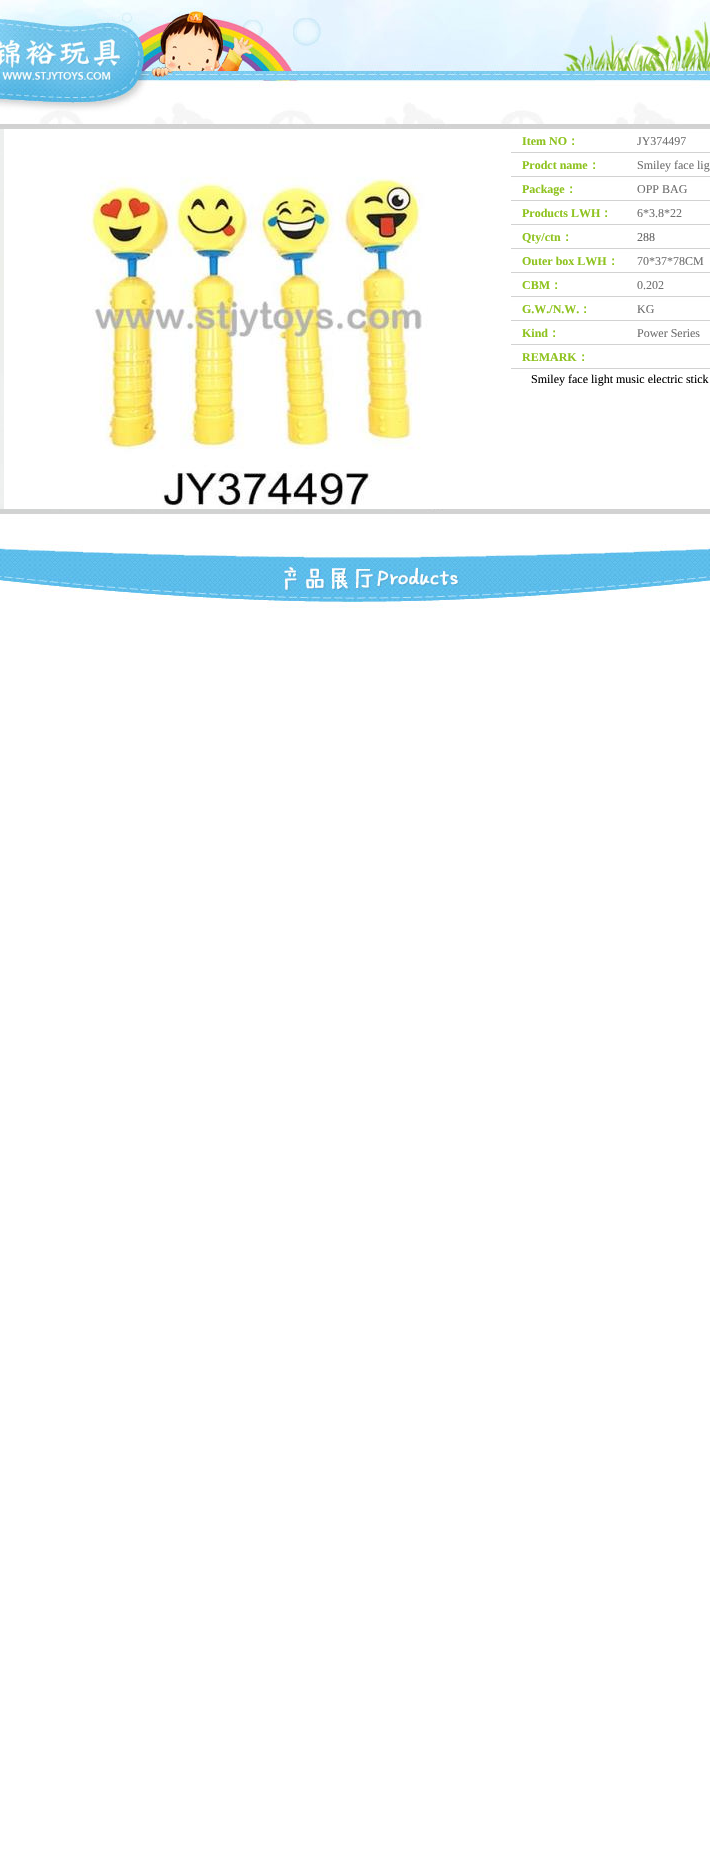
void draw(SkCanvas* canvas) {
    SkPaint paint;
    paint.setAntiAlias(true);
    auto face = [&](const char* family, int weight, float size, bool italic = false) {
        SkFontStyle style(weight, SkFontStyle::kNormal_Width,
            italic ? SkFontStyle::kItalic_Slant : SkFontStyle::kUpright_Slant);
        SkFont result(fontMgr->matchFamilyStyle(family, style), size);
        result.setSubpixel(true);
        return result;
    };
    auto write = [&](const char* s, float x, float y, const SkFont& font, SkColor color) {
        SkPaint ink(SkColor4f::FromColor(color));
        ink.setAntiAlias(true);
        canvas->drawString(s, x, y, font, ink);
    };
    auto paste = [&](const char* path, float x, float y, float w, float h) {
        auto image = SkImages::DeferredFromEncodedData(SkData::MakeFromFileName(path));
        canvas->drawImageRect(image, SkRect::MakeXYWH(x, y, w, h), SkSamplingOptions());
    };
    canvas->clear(SK_ColorWHITE);
    paste("pic1.png", 0, 0, 710, 623);
    paste("pic2.png", 4, 129, 507, 380);
    auto kFont1 = face("Liberation Serif", 700, 12);
    write("Item NO", 522, 145, kFont1, SkColorSetRGB(143, 195, 31));
    auto kFont2 = face("WenQuanYi Zen Hei", 700, 12);
    write("：", 567, 145, kFont2, SkColorSetRGB(143, 195, 31));
    auto kFont3 = face("Liberation Serif", 400, 12);
    write("JY374497", 637, 145, kFont3, SkColorSetRGB(112, 112, 112));
    write("Prodct name", 522, 169, kFont1, SkColorSetRGB(143, 195, 31));
    write("：", 588, 169, kFont2, SkColorSetRGB(143, 195, 31));
    write("Smiley face lig", 637, 169, kFont3, SkColorSetRGB(112, 112, 112));
    write("Package", 522, 193, kFont1, SkColorSetRGB(143, 195, 31));
    write("：", 565, 193, kFont2, SkColorSetRGB(143, 195, 31));
    write("OPP BAG", 637, 193, kFont3, SkColorSetRGB(112, 112, 112));
    write("Products LWH", 522, 217, kFont1, SkColorSetRGB(143, 195, 31));
    write("：", 600, 217, kFont2, SkColorSetRGB(143, 195, 31));
    write("6*3.8*22", 637, 217, kFont3, SkColorSetRGB(112, 112, 112));
    write("Qty/ctn", 522, 241, kFont1, SkColorSetRGB(143, 195, 31));
    write("：", 561, 241, kFont2, SkColorSetRGB(143, 195, 31));
    write("288", 637, 241, kFont3, SkColorSetRGB(102, 102, 102));
    write("Outer box LWH", 522, 265, kFont1, SkColorSetRGB(143, 195, 31));
    write("：", 607, 265, kFont2, SkColorSetRGB(143, 195, 31));
    write("70*37*78CM", 637, 265, kFont3, SkColorSetRGB(112, 112, 112));
    write("CBM", 522, 289, kFont1, SkColorSetRGB(143, 195, 31));
    write("：", 550, 289, kFont2, SkColorSetRGB(143, 195, 31));
    write("0.202", 637, 289, kFont3, SkColorSetRGB(112, 112, 112));
    write("G.W./N.W.", 522, 313, kFont1, SkColorSetRGB(143, 195, 31));
    write("：", 579, 313, kFont2, SkColorSetRGB(143, 195, 31));
    write("KG", 637, 313, kFont3, SkColorSetRGB(112, 112, 112));
    write("Kind", 522, 337, kFont1, SkColorSetRGB(143, 195, 31));
    write("：", 548, 337, kFont2, SkColorSetRGB(143, 195, 31));
    write("Power Series", 637, 337, kFont3, SkColorSetRGB(112, 112, 112));
    write("REMARK", 522, 361, kFont1, SkColorSetRGB(143, 195, 31));
    write("：", 577, 361, kFont2, SkColorSetRGB(143, 195, 31));
    write("Smiley face light music electric stick", 531, 383, kFont3, SK_ColorBLACK);
}
